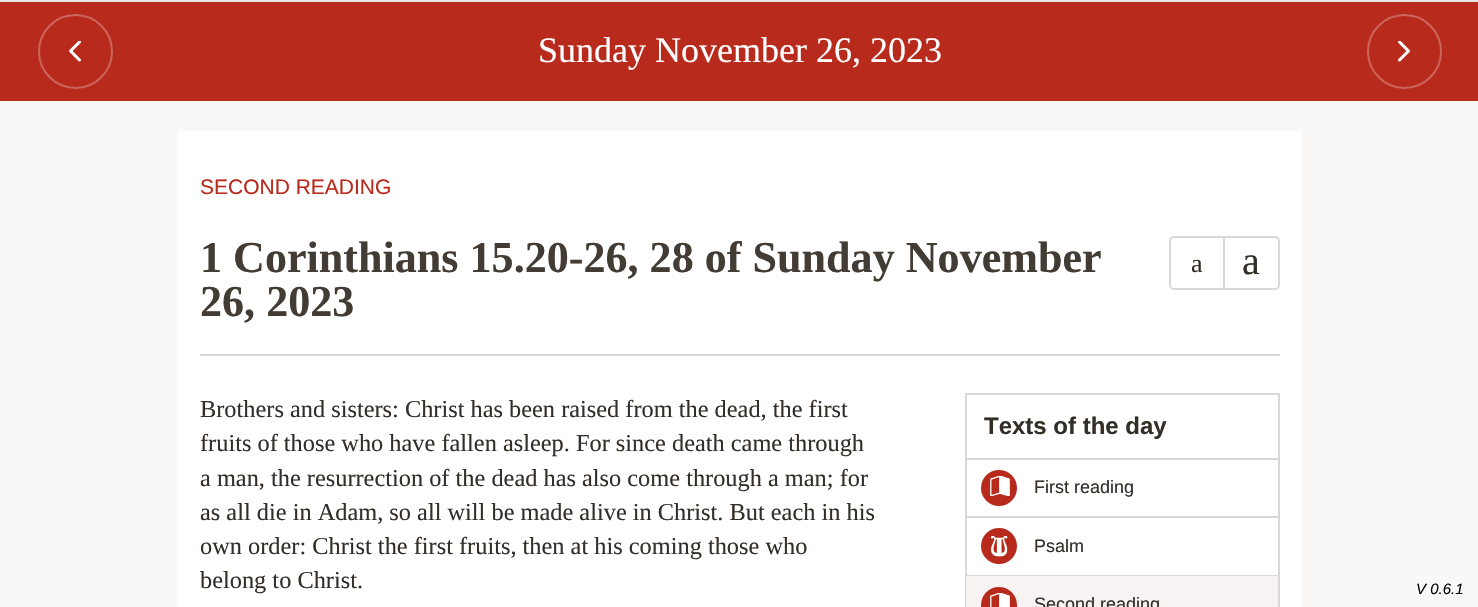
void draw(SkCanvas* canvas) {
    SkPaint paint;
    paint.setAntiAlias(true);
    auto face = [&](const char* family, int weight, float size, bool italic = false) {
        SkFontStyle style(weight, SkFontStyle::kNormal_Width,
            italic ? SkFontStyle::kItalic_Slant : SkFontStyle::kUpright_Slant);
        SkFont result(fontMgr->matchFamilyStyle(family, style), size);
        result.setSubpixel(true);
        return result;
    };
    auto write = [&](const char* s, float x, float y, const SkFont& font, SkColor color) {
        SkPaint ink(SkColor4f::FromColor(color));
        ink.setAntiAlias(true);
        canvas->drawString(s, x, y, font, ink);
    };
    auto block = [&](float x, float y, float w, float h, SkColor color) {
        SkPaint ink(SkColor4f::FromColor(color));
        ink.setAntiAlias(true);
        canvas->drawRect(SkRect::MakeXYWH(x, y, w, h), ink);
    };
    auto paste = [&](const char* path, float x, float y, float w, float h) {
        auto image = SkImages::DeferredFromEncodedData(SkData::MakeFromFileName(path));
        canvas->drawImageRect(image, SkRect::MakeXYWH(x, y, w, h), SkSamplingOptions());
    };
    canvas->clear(SkColorSetRGB(250, 248, 247));
    block(0, 0, 1478, 2, SkColorSetRGB(230, 229, 229));
    block(0, 2, 1478, 99, SkColorSetRGB(184, 42, 28));
    paste("pic1.png", 69, 41, 12, 21);
    paint.setStyle(SkPaint::kStroke_Style);
    paint.setStrokeWidth(2);
    paint.setColor(SkColorSetRGB(204, 101, 91));
    canvas->drawCircle(75.5f, 51.5f, 36.5f, paint);
    auto kFont1 = face("Liberation Serif", 400, 36);
    write("Sunday November 26, 2023", 538, 62, kFont1, SK_ColorWHITE);
    paste("pic2.png", 1398, 41, 12, 21);
    canvas->drawCircle(1404.5f, 51.5f, 36.5f, paint);
    block(177, 131, 1125, 476, SK_ColorWHITE);
    auto kFont2 = face("Liberation Sans", 400, 21);
    write("SECOND READING", 200, 194, kFont2, SkColorSetRGB(184, 42, 28));
    block(200, 354, 1080, 2, SkColorSetRGB(216, 216, 216));
    auto kFont3 = face("Liberation Serif", 700, 44.1f);
    write("1 Corinthians 15.20-26, 28 of Sunday November", 200, 272, kFont3, SkColorSetRGB(67, 60, 53));
    write("26, 2023", 200, 316, kFont3, SkColorSetRGB(67, 60, 53));
    paint.setColor(SkColorSetRGB(216, 216, 216));
    canvas->drawRoundRect(SkRect::MakeXYWH(1170, 237, 109, 52), 4, 4, paint);
    block(1223, 237, 2, 51, SkColorSetRGB(216, 216, 216));
    auto kFont4 = face("Liberation Serif", 400, 26);
    write("a", 1191, 272, kFont4, SkColorSetRGB(51, 46, 40));
    auto kFont5 = face("Liberation Serif", 400, 40);
    write("a", 1242, 274, kFont5, SkColorSetRGB(51, 46, 40));
    auto kFont6 = face("Liberation Serif", 400, 24.35f);
    write("Brothers and sisters: Christ has been raised from the dead, the first", 200, 417, kFont6, SkColorSetRGB(51, 46, 40));
    write("fruits of those who have fallen asleep. For since death came through", 200, 451, kFont6, SkColorSetRGB(51, 46, 40));
    write("a man, the resurrection of the dead has also come through a man; for", 200, 486, kFont6, SkColorSetRGB(51, 46, 40));
    write("as all die in Adam, so all will be made alive in Christ. But each in his", 200, 520, kFont6, SkColorSetRGB(51, 46, 40));
    write("own order: Christ the first fruits, then at his coming those who", 200, 554, kFont6, SkColorSetRGB(51, 46, 40));
    write("belong to Christ.", 200, 588, kFont6, SkColorSetRGB(51, 46, 40));
    canvas->drawRect(SkRect::MakeXYWH(966, 394, 313, 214), paint);
    auto kFont7 = face("Liberation Sans", 700, 24);
    write("Texts of the day", 984, 434, kFont7, SkColorSetRGB(51, 46, 40));
    block(966, 458, 312, 2, SkColorSetRGB(216, 216, 216));
    block(966, 516, 312, 2, SkColorSetRGB(216, 216, 216));
    paint.setStyle(SkPaint::kFill_Style);
    paint.setColor(SkColorSetRGB(184, 42, 28));
    canvas->drawCircle(999, 488, 18, paint);
    paste("pic3.png", 990, 476, 20, 20);
    auto kFont8 = face("Liberation Sans", 400, 18);
    write("First reading", 1034, 493, kFont8, SkColorSetRGB(51, 46, 40));
    block(966, 575, 312, 1, SkColorSetRGB(216, 216, 216));
    canvas->drawCircle(999, 546, 18, paint);
    paste("pic4.png", 991, 536, 17, 21);
    write("Psalm", 1034, 552, kFont8, SkColorSetRGB(51, 46, 40));
    block(966, 576, 312, 31, SkColorSetRGB(248, 243, 243));
    canvas->drawCircle(999, 605, 18, paint);
    paste("pic5.png", 990, 593, 20, 14);
    write("Second reading", 1034, 610, kFont8, SkColorSetRGB(51, 46, 40));
    auto kFont9 = face("Liberation Sans", 400, 15, true);
    write("V 0.6.1", 1416, 594, kFont9, SK_ColorBLACK);
}
